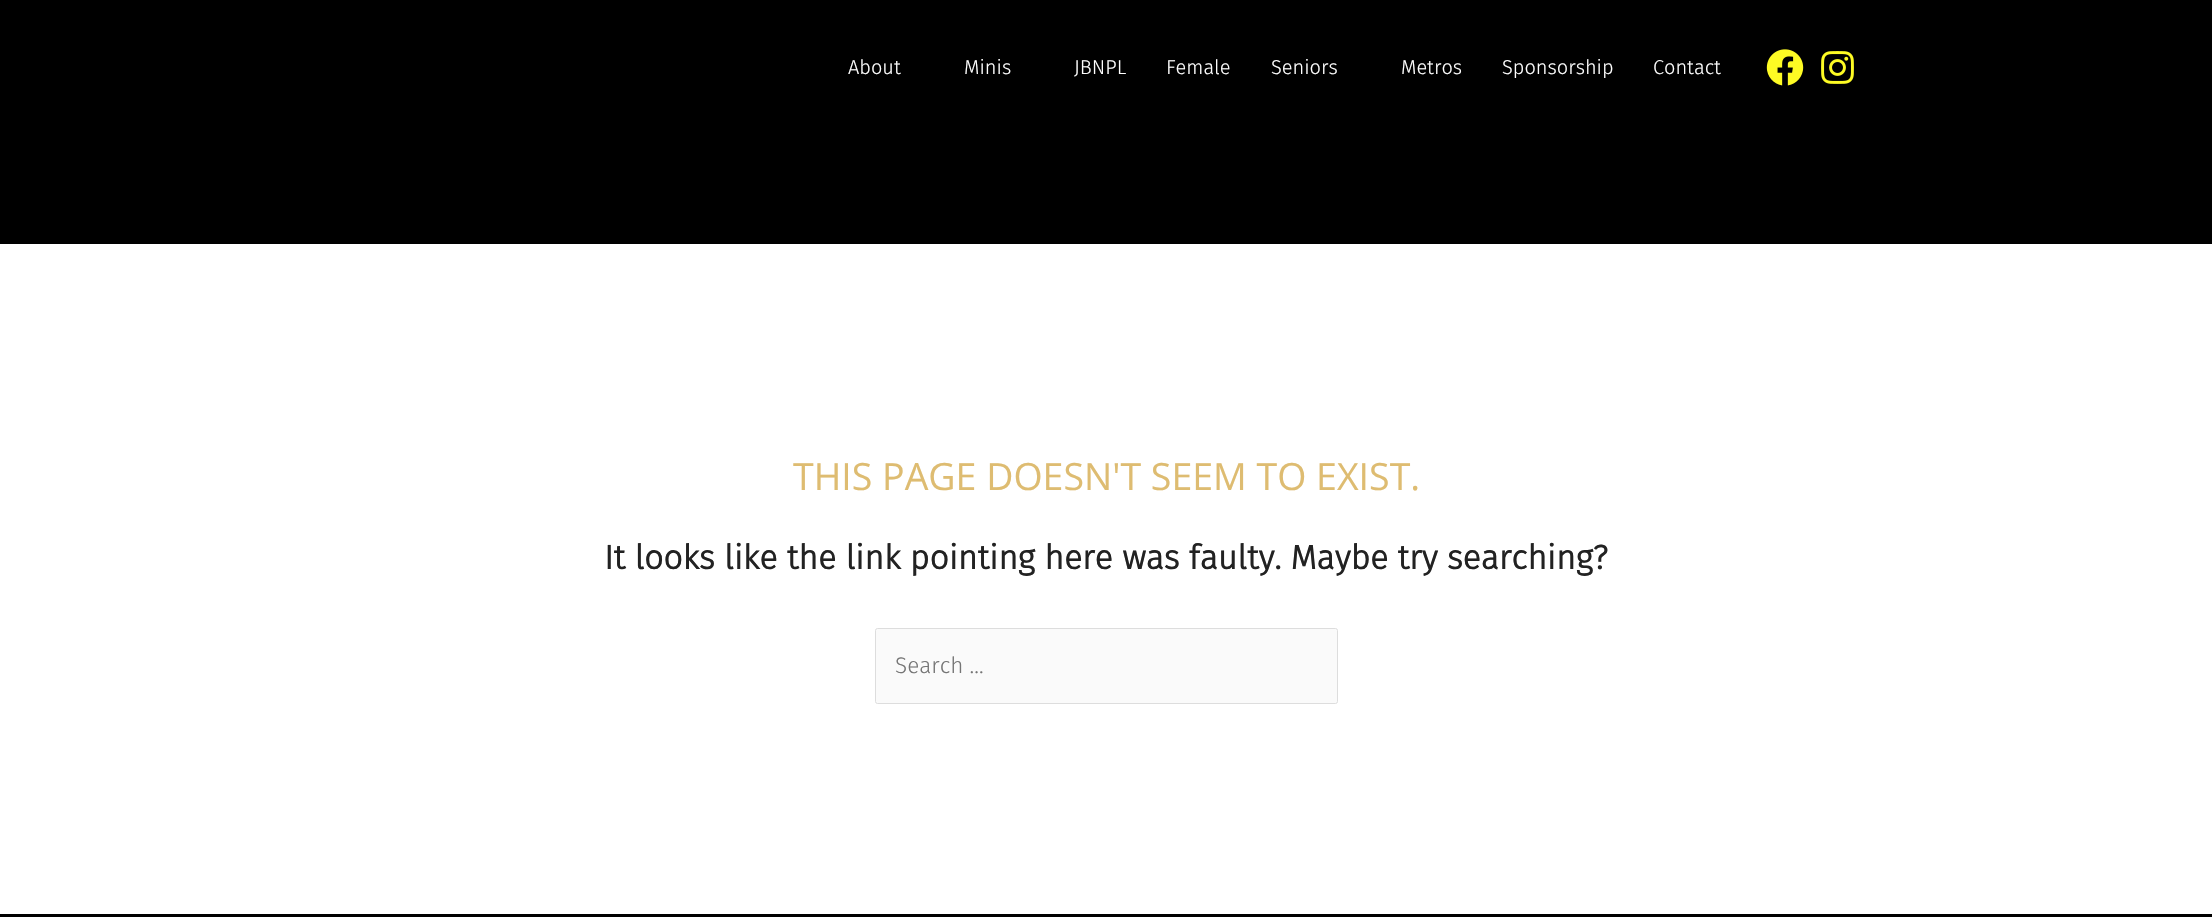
void draw(SkCanvas* canvas) {
    SkPaint paint;
    paint.setAntiAlias(true);
    auto face = [&](const char* family, int weight, float size, bool italic = false) {
        SkFontStyle style(weight, SkFontStyle::kNormal_Width,
            italic ? SkFontStyle::kItalic_Slant : SkFontStyle::kUpright_Slant);
        SkFont result(fontMgr->matchFamilyStyle(family, style), size);
        result.setSubpixel(true);
        return result;
    };
    auto write = [&](const char* s, float x, float y, const SkFont& font, SkColor color) {
        SkPaint ink(SkColor4f::FromColor(color));
        ink.setAntiAlias(true);
        canvas->drawString(s, x, y, font, ink);
    };
    auto block = [&](float x, float y, float w, float h, SkColor color) {
        SkPaint ink(SkColor4f::FromColor(color));
        ink.setAntiAlias(true);
        canvas->drawRect(SkRect::MakeXYWH(x, y, w, h), ink);
    };
    auto paste = [&](const char* path, float x, float y, float w, float h) {
        auto image = SkImages::DeferredFromEncodedData(SkData::MakeFromFileName(path));
        canvas->drawImageRect(image, SkRect::MakeXYWH(x, y, w, h), SkSamplingOptions());
    };
    canvas->clear(SK_ColorWHITE);
    block(0, 0, 2212, 244, SK_ColorBLACK);
    auto kFont1 = face("Fira Sans", 300, 20);
    write("About", 848, 74, kFont1, SK_ColorWHITE);
    write("Minis", 964, 74, kFont1, SK_ColorWHITE);
    write("JBNPL", 1074, 74, kFont1, SK_ColorWHITE);
    write("Female", 1166, 74, kFont1, SK_ColorWHITE);
    write("Seniors", 1271, 74, kFont1, SK_ColorWHITE);
    write("Metros", 1401, 74, kFont1, SK_ColorWHITE);
    write("Sponsorship", 1502, 74, kFont1, SK_ColorWHITE);
    write("Contact", 1653, 74, kFont1, SK_ColorWHITE);
    paste("pic1.png", 1766, 49, 38, 37);
    paste("pic2.png", 1821, 51, 33, 33);
    auto kFont2 = face("Open Sans", 400, 37.5f);
    write("THIS PAGE DOESN'T SEEM TO EXIST.", 793, 490, kFont2, SkColorSetRGB(222, 188, 113));
    auto kFont3 = face("Fira Sans", 700, 33.75f);
    write("It looks like the link pointing here was faulty. Maybe try searching?", 604, 569, kFont3, SkColorSetRGB(34, 34, 34));
    paint.setColor(SkColorSetRGB(250, 250, 250));
    canvas->drawRoundRect(SkRect::MakeXYWH(875.5f, 628.5f, 462, 75), 2, 2, paint);
    paint.setStyle(SkPaint::kStroke_Style);
    paint.setStrokeWidth(1);
    paint.setColor(SkColorSetRGB(221, 221, 221));
    canvas->drawRoundRect(SkRect::MakeXYWH(875.5f, 628.5f, 462, 75), 2, 2, paint);
    auto kFont4 = face("Fira Sans", 300, 22.5f);
    write("Search …", 895, 673, kFont4, SkColorSetRGB(117, 117, 117));
    block(0, 914, 2212, 3, SK_ColorBLACK);
}
